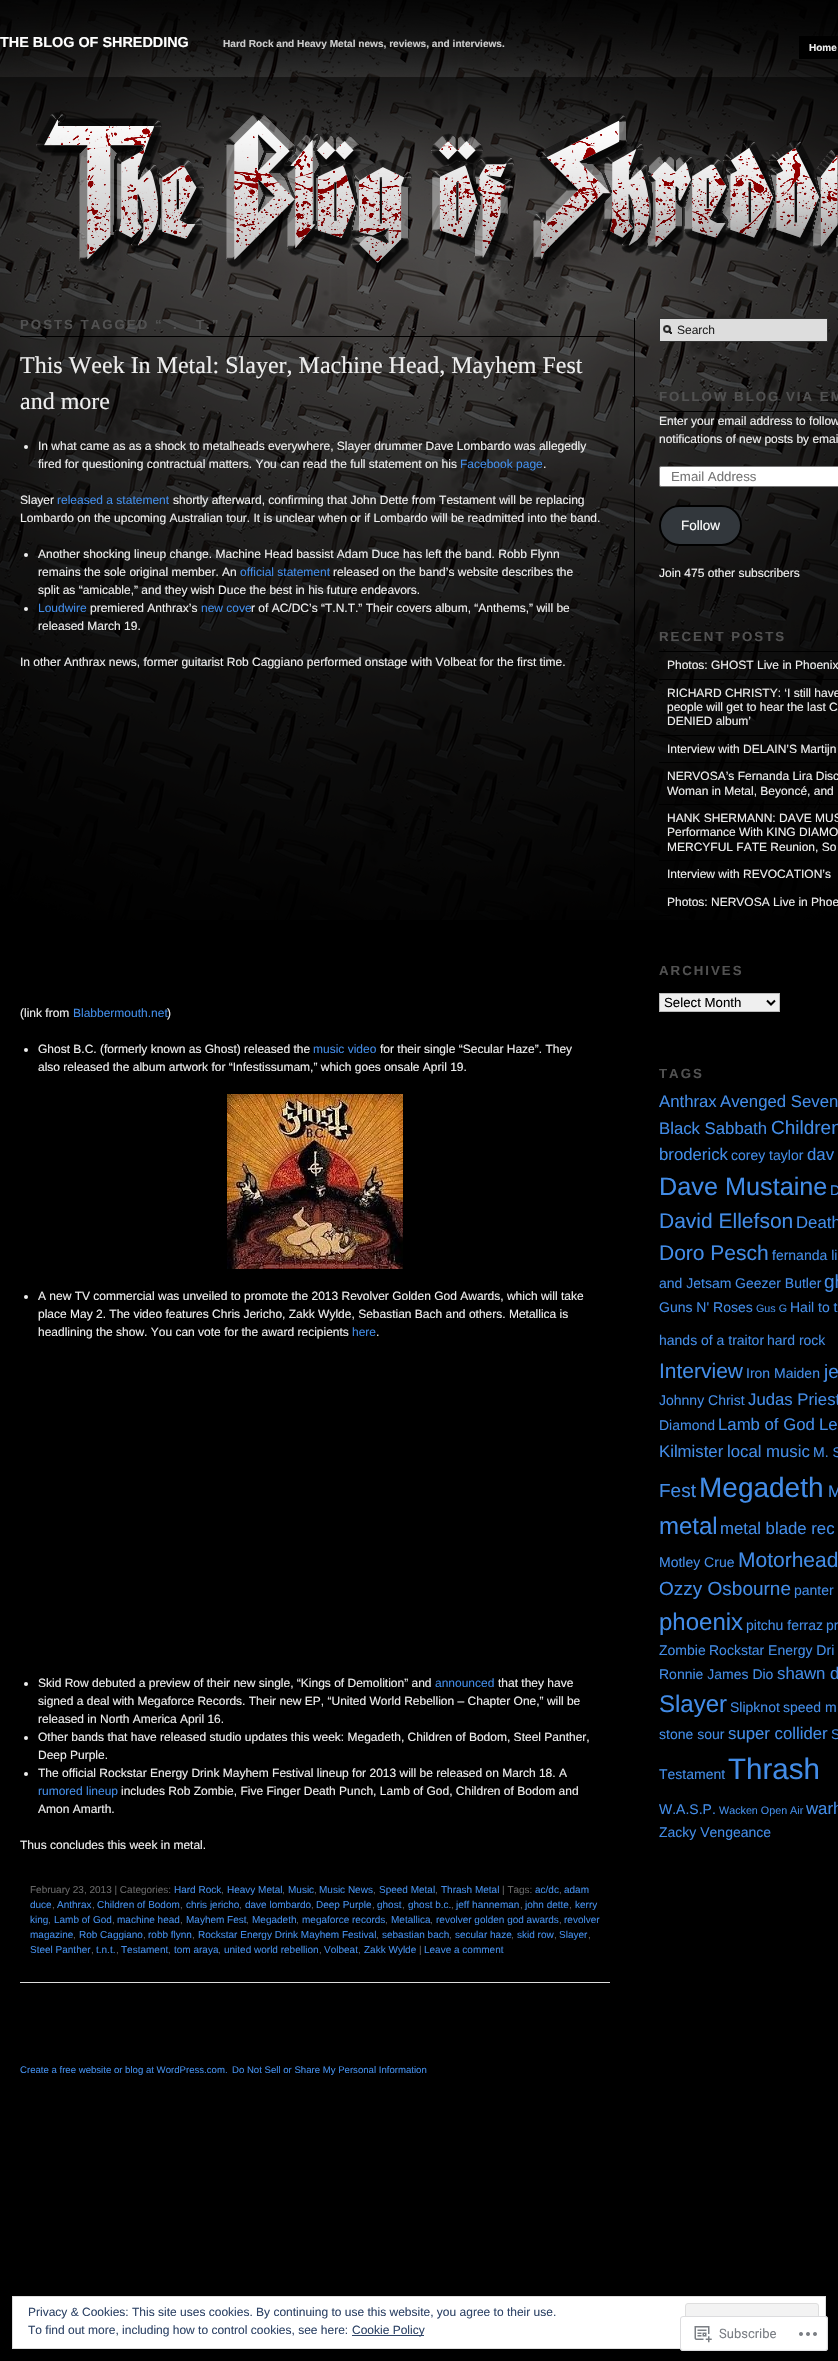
void draw(SkCanvas* canvas) {
    SkPaint paint;
    paint.setAntiAlias(true);
    auto face = [&](const char* family, int weight, float size, bool italic = false) {
        SkFontStyle style(weight, SkFontStyle::kNormal_Width,
            italic ? SkFontStyle::kItalic_Slant : SkFontStyle::kUpright_Slant);
        SkFont result(fontMgr->matchFamilyStyle(family, style), size);
        result.setSubpixel(true);
        return result;
    };
    auto write = [&](const char* s, float x, float y, const SkFont& font, SkColor color) {
        SkPaint ink(SkColor4f::FromColor(color));
        ink.setAntiAlias(true);
        canvas->drawString(s, x, y, font, ink);
    };
    auto writeSpaced = [&](const char* s, float x, float y, const SkFont& font, const SkPaint& ink, float letter, float word) {
        std::vector<SkGlyphID> glyphs(font.countText(s, strlen(s), SkTextEncoding::kUTF8));
        std::vector<float> xs(glyphs.size());
        font.textToGlyphs(s, strlen(s), SkTextEncoding::kUTF8, glyphs);
        font.getXPos(glyphs, xs, x);
        float extra = 0;
        for (size_t i = 0; i < glyphs.size(); i++) {
            xs[i] += extra;
            extra += letter + word * (glyphs[i] == font.unicharToGlyph(' '));
        }
        canvas->drawTextBlob(SkTextBlob::MakeFromPosHGlyphs(glyphs, xs, y, font), 0, 0, ink);
    };
    auto block = [&](float x, float y, float w, float h, SkColor color) {
        SkPaint ink(SkColor4f::FromColor(color));
        ink.setAntiAlias(true);
        canvas->drawRect(SkRect::MakeXYWH(x, y, w, h), ink);
    };
    auto card = [&](float x, float y, float w, float h, float radius, SkColor color) {
        SkPaint ink(SkColor4f::FromColor(color));
        ink.setAntiAlias(true);
        canvas->drawRoundRect(SkRect::MakeXYWH(x, y, w, h), radius, radius, ink);
    };
    auto paste = [&](const char* path, float x, float y, float w, float h) {
        auto image = SkImages::DeferredFromEncodedData(SkData::MakeFromFileName(path));
        canvas->drawImageRect(image, SkRect::MakeXYWH(x, y, w, h), SkSamplingOptions());
    };
    canvas->clear(SK_ColorBLACK);
    paste("pic1.png", 0, 0, 838, 920);
    auto kFont1 = face("Liberation Sans", 700, 14.4f);
    write("THE BLOG OF SHREDDING", 0, 47, kFont1, SK_ColorWHITE);
    auto kFont2 = face("Liberation Sans", 700, 10.1f);
    write("Hard Rock and Heavy Metal news, reviews, and interviews.", 223, 47, kFont2, SkColorSetRGB(204, 204, 204));
    block(799, 36, 39, 23, SK_ColorBLACK);
    auto kFont3 = face("Liberation Sans", 700, 10);
    write("Home", 809, 51, kFont3, SkColorSetRGB(238, 238, 238));
    paste("pic2.png", 36, 112, 802, 162);
    block(634, 318, 1, 589, SK_ColorBLACK);
    block(20, 336, 590, 1, SK_ColorBLACK);
    auto kFont4 = face("Liberation Sans", 700, 13.25f);
    paint.setColor(SkColorSetRGB(81, 81, 81));
    writeSpaced("POSTS TAGGED “", 20, 329, kFont4, paint, 2, 0);
    writeSpaced(".", 173, 329, kFont4, paint, 2, 0);
    writeSpaced("T.”", 196, 329, kFont4, paint, 2, 0);
    auto kFont5 = face("Liberation Serif", 400, 24);
    write("This Week In Metal: Slayer, Machine Head, Mayhem Fest", 20, 373, kFont5, SkColorSetRGB(238, 238, 238));
    write("and more", 20, 409, kFont5, SkColorSetRGB(238, 238, 238));
    paint.setColor(SkColorSetRGB(238, 238, 238));
    canvas->drawCircle(26, 447, 2, paint);
    auto kFont6 = face("Liberation Sans", 400, 12);
    write("In what came as as a shock to metalheads everywhere, Slayer drummer Dave Lombardo was allegedly", 38, 450, kFont6, SkColorSetRGB(238, 238, 238));
    write("fired for questioning contractual matters. You can read the full statement on his", 38, 468, kFont6, SkColorSetRGB(238, 238, 238));
    write("Facebook page", 460, 468, kFont6, SkColorSetRGB(66, 140, 231));
    write(".", 543, 468, kFont6, SkColorSetRGB(238, 238, 238));
    write("Slayer", 20, 504, kFont6, SkColorSetRGB(238, 238, 238));
    write("released a statement", 57, 504, kFont6, SkColorSetRGB(66, 140, 231));
    write("shortly afterward, confirming that John Dette from Testament will be replacing", 173, 504, kFont6, SkColorSetRGB(238, 238, 238));
    write("Lombardo on the upcoming Australian tour. It is unclear when or if Lombardo will be readmitted into the band.", 20, 522, kFont6, SkColorSetRGB(238, 238, 238));
    canvas->drawCircle(26, 555, 2, paint);
    write("Another shocking lineup change. Machine Head bassist Adam Duce has left the band. Robb Flynn", 38, 558, kFont6, SkColorSetRGB(238, 238, 238));
    write("remains the sole original member. An", 38, 576, kFont6, SkColorSetRGB(238, 238, 238));
    write("official statement", 240, 576, kFont6, SkColorSetRGB(66, 140, 231));
    write("released on the band’s website describes the", 333, 576, kFont6, SkColorSetRGB(238, 238, 238));
    write("split as “amicable,” and they wish Duce the best in his future endeavors.", 38, 594, kFont6, SkColorSetRGB(238, 238, 238));
    canvas->drawCircle(26, 609, 2, paint);
    write("Loudwire", 38, 612, kFont6, SkColorSetRGB(66, 140, 231));
    write("premiered Anthrax’s", 90, 612, kFont6, SkColorSetRGB(238, 238, 238));
    write("new cove", 201, 612, kFont6, SkColorSetRGB(66, 140, 231));
    write("r of AC/DC’s “T.N.T.” Their covers album, “Anthems,” will be", 251, 612, kFont6, SkColorSetRGB(238, 238, 238));
    write("released March 19.", 38, 630, kFont6, SkColorSetRGB(238, 238, 238));
    write("In other Anthrax news, former guitarist Rob Caggiano performed onstage with Volbeat for the first time.", 20, 666, kFont6, SkColorSetRGB(238, 238, 238));
    write("(link from", 20, 1017, kFont6, SkColorSetRGB(238, 238, 238));
    write("Blabbermouth.net", 73, 1017, kFont6, SkColorSetRGB(66, 140, 231));
    write(")", 167, 1017, kFont6, SkColorSetRGB(238, 238, 238));
    canvas->drawCircle(26, 1050, 2, paint);
    write("Ghost B.C. (formerly known as Ghost) released the", 38, 1053, kFont6, SkColorSetRGB(238, 238, 238));
    write("music video", 313, 1053, kFont6, SkColorSetRGB(66, 140, 231));
    write("for their single “Secular Haze”. They", 380, 1053, kFont6, SkColorSetRGB(238, 238, 238));
    write("also released the album artwork for “Infestissumam,” which goes onsale April 19.", 38, 1071, kFont6, SkColorSetRGB(238, 238, 238));
    paste("pic3.png", 227, 1094, 176, 175);
    canvas->drawCircle(26, 1297, 2, paint);
    write("A new TV commercial was unveiled to promote the 2013 Revolver Golden God Awards, which will take", 38, 1300, kFont6, SkColorSetRGB(238, 238, 238));
    write("place May 2. The video features Chris Jericho, Zakk Wylde, Sebastian Bach and others. Metallica is", 38, 1318, kFont6, SkColorSetRGB(238, 238, 238));
    write("headlining the show. You can vote for the award recipients", 38, 1336, kFont6, SkColorSetRGB(238, 238, 238));
    write("here", 352, 1336, kFont6, SkColorSetRGB(66, 140, 231));
    write(".", 376, 1336, kFont6, SkColorSetRGB(238, 238, 238));
    canvas->drawCircle(26, 1684, 2, paint);
    write("Skid Row debuted a preview of their new single, “Kings of Demolition” and", 38, 1687, kFont6, SkColorSetRGB(238, 238, 238));
    write("announced", 435, 1687, kFont6, SkColorSetRGB(66, 140, 231));
    write("that they have", 498, 1687, kFont6, SkColorSetRGB(238, 238, 238));
    write("signed a deal with Megaforce Records. Their new EP, “United World Rebellion – Chapter One,” will be", 38, 1705, kFont6, SkColorSetRGB(238, 238, 238));
    write("released in North America April 16.", 38, 1723, kFont6, SkColorSetRGB(238, 238, 238));
    canvas->drawCircle(26, 1738, 2, paint);
    write("Other bands that have released studio updates this week: Megadeth, Children of Bodom, Steel Panther,", 38, 1741, kFont6, SkColorSetRGB(238, 238, 238));
    write("Deep Purple.", 38, 1759, kFont6, SkColorSetRGB(238, 238, 238));
    canvas->drawCircle(26, 1774, 2, paint);
    write("The official Rockstar Energy Drink Mayhem Festival lineup for 2013 will be released on March 18. A", 38, 1777, kFont6, SkColorSetRGB(238, 238, 238));
    write("rumored lineup", 38, 1795, kFont6, SkColorSetRGB(66, 140, 231));
    write("includes Rob Zombie, Five Finger Death Punch, Lamb of God, Children of Bodom and", 121, 1795, kFont6, SkColorSetRGB(238, 238, 238));
    write("Amon Amarth.", 38, 1813, kFont6, SkColorSetRGB(238, 238, 238));
    write("Thus concludes this week in metal.", 20, 1849, kFont6, SkColorSetRGB(238, 238, 238));
    auto kFont7 = face("Liberation Sans", 400, 10);
    write("February 23, 2013 | Categories:", 30, 1893, kFont7, SkColorSetRGB(102, 102, 102));
    write("Hard Rock", 174, 1893, kFont7, SkColorSetRGB(66, 140, 231));
    write(",", 221, 1893, kFont7, SkColorSetRGB(102, 102, 102));
    write("Heavy Metal", 227, 1893, kFont7, SkColorSetRGB(66, 140, 231));
    write(",", 282, 1893, kFont7, SkColorSetRGB(102, 102, 102));
    write("Music", 288, 1893, kFont7, SkColorSetRGB(66, 140, 231));
    write(",", 314, 1893, kFont7, SkColorSetRGB(102, 102, 102));
    write("Music News", 319, 1893, kFont7, SkColorSetRGB(66, 140, 231));
    write(",", 373, 1893, kFont7, SkColorSetRGB(102, 102, 102));
    write("Speed Metal", 379, 1893, kFont7, SkColorSetRGB(66, 140, 231));
    write(",", 435, 1893, kFont7, SkColorSetRGB(102, 102, 102));
    write("Thrash Metal", 441, 1893, kFont7, SkColorSetRGB(66, 140, 231));
    write("| Tags:", 502, 1893, kFont7, SkColorSetRGB(102, 102, 102));
    write("ac/dc", 535, 1893, kFont7, SkColorSetRGB(66, 140, 231));
    write(",", 559, 1893, kFont7, SkColorSetRGB(102, 102, 102));
    write("adam", 564, 1893, kFont7, SkColorSetRGB(66, 140, 231));
    write("duce", 30, 1908, kFont7, SkColorSetRGB(66, 140, 231));
    write(",", 52, 1908, kFont7, SkColorSetRGB(102, 102, 102));
    write("Anthrax", 57, 1908, kFont7, SkColorSetRGB(66, 140, 231));
    write(",", 92, 1908, kFont7, SkColorSetRGB(102, 102, 102));
    write("Children of Bodom", 97, 1908, kFont7, SkColorSetRGB(66, 140, 231));
    write(",", 180, 1908, kFont7, SkColorSetRGB(102, 102, 102));
    write("chris jericho", 186, 1908, kFont7, SkColorSetRGB(66, 140, 231));
    write(",", 239, 1908, kFont7, SkColorSetRGB(102, 102, 102));
    write("dave lombardo", 245, 1908, kFont7, SkColorSetRGB(66, 140, 231));
    write(",", 311, 1908, kFont7, SkColorSetRGB(102, 102, 102));
    write("Deep Purple", 316, 1908, kFont7, SkColorSetRGB(66, 140, 231));
    write(",", 372, 1908, kFont7, SkColorSetRGB(102, 102, 102));
    write("ghost", 377, 1908, kFont7, SkColorSetRGB(66, 140, 231));
    write(",", 402, 1908, kFont7, SkColorSetRGB(102, 102, 102));
    write("ghost b.c.", 408, 1908, kFont7, SkColorSetRGB(66, 140, 231));
    write(",", 451, 1908, kFont7, SkColorSetRGB(102, 102, 102));
    write("jeff hanneman", 456, 1908, kFont7, SkColorSetRGB(66, 140, 231));
    write(",", 520, 1908, kFont7, SkColorSetRGB(102, 102, 102));
    write("john dette", 525, 1908, kFont7, SkColorSetRGB(66, 140, 231));
    write(",", 569, 1908, kFont7, SkColorSetRGB(102, 102, 102));
    write("kerry", 575, 1908, kFont7, SkColorSetRGB(66, 140, 231));
    write("king", 30, 1923, kFont7, SkColorSetRGB(66, 140, 231));
    write(",", 48, 1923, kFont7, SkColorSetRGB(102, 102, 102));
    write("Lamb of God", 54, 1923, kFont7, SkColorSetRGB(66, 140, 231));
    write(",", 112, 1923, kFont7, SkColorSetRGB(102, 102, 102));
    write("machine head", 117, 1923, kFont7, SkColorSetRGB(66, 140, 231));
    write(",", 180, 1923, kFont7, SkColorSetRGB(102, 102, 102));
    write("Mayhem Fest", 186, 1923, kFont7, SkColorSetRGB(66, 140, 231));
    write(",", 246, 1923, kFont7, SkColorSetRGB(102, 102, 102));
    write("Megadeth", 252, 1923, kFont7, SkColorSetRGB(66, 140, 231));
    write(",", 296, 1923, kFont7, SkColorSetRGB(102, 102, 102));
    write("megaforce records", 302, 1923, kFont7, SkColorSetRGB(66, 140, 231));
    write(",", 385, 1923, kFont7, SkColorSetRGB(102, 102, 102));
    write("Metallica", 391, 1923, kFont7, SkColorSetRGB(66, 140, 231));
    write(",", 430, 1923, kFont7, SkColorSetRGB(102, 102, 102));
    write("revolver golden god awards", 436, 1923, kFont7, SkColorSetRGB(66, 140, 231));
    write(",", 559, 1923, kFont7, SkColorSetRGB(102, 102, 102));
    write("revolver", 564, 1923, kFont7, SkColorSetRGB(66, 140, 231));
    write("magazine", 30, 1938, kFont7, SkColorSetRGB(66, 140, 231));
    write(",", 73, 1938, kFont7, SkColorSetRGB(102, 102, 102));
    write("Rob Caggiano", 79, 1938, kFont7, SkColorSetRGB(66, 140, 231));
    write(",", 143, 1938, kFont7, SkColorSetRGB(102, 102, 102));
    write("robb flynn", 148, 1938, kFont7, SkColorSetRGB(66, 140, 231));
    write(",", 192, 1938, kFont7, SkColorSetRGB(102, 102, 102));
    write("Rockstar Energy Drink Mayhem Festival", 198, 1938, kFont7, SkColorSetRGB(66, 140, 231));
    write(",", 376, 1938, kFont7, SkColorSetRGB(102, 102, 102));
    write("sebastian bach", 382, 1938, kFont7, SkColorSetRGB(66, 140, 231));
    write(",", 449, 1938, kFont7, SkColorSetRGB(102, 102, 102));
    write("secular haze", 455, 1938, kFont7, SkColorSetRGB(66, 140, 231));
    write(",", 511, 1938, kFont7, SkColorSetRGB(102, 102, 102));
    write("skid row", 517, 1938, kFont7, SkColorSetRGB(66, 140, 231));
    write(",", 554, 1938, kFont7, SkColorSetRGB(102, 102, 102));
    write("Slayer", 559, 1938, kFont7, SkColorSetRGB(66, 140, 231));
    write(",", 588, 1938, kFont7, SkColorSetRGB(102, 102, 102));
    write("Steel Panther", 30, 1953, kFont7, SkColorSetRGB(66, 140, 231));
    write(",", 91, 1953, kFont7, SkColorSetRGB(102, 102, 102));
    write("t.n.t.", 96, 1953, kFont7, SkColorSetRGB(66, 140, 231));
    write(",", 116, 1953, kFont7, SkColorSetRGB(102, 102, 102));
    write("Testament", 121, 1953, kFont7, SkColorSetRGB(66, 140, 231));
    write(",", 168, 1953, kFont7, SkColorSetRGB(102, 102, 102));
    write("tom araya", 174, 1953, kFont7, SkColorSetRGB(66, 140, 231));
    write(",", 218, 1953, kFont7, SkColorSetRGB(102, 102, 102));
    write("united world rebellion", 224, 1953, kFont7, SkColorSetRGB(66, 140, 231));
    write(",", 319, 1953, kFont7, SkColorSetRGB(102, 102, 102));
    write("Volbeat", 324, 1953, kFont7, SkColorSetRGB(66, 140, 231));
    write(",", 358, 1953, kFont7, SkColorSetRGB(102, 102, 102));
    write("Zakk Wylde", 364, 1953, kFont7, SkColorSetRGB(66, 140, 231));
    write("|", 419, 1953, kFont7, SkColorSetRGB(102, 102, 102));
    write("Leave a comment", 424, 1953, kFont7, SkColorSetRGB(66, 140, 231));
    block(20, 1982, 590, 1, SkColorSetRGB(221, 221, 221));
    block(660, 319, 167, 22, SkColorSetRGB(221, 221, 221));
    paste("pic4.png", 663, 325, 9, 9);
    paint.setStyle(SkPaint::kStroke_Style);
    paint.setStrokeWidth(1);
    paint.setColor(SkColorSetRGB(51, 51, 51));
    canvas->drawRect(SkRect::MakeXYWH(659.5f, 318.5f, 168, 23), paint);
    write("Search", 677, 334, kFont6, SkColorSetRGB(34, 34, 34));
    block(659, 411, 179, 1, SK_ColorBLACK);
    paint.setStyle(SkPaint::kFill_Style);
    paint.setColor(SkColorSetRGB(81, 81, 81));
    writeSpaced("FOLLOW BLOG VIA EM", 659, 401, kFont4, paint, 2, 0);
    write("Enter your email address to follow", 659, 425, kFont6, SkColorSetRGB(238, 238, 238));
    write("notifications of new posts by emai", 659, 443, kFont6, SkColorSetRGB(238, 238, 238));
    paint.setColor(SK_ColorWHITE);
    canvas->drawRoundRect(SkRect::MakeXYWH(659.5f, 466.5f, 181, 20), 1.5f, 1.5f, paint);
    paint.setStyle(SkPaint::kStroke_Style);
    paint.setColor(SkColorSetRGB(118, 118, 118));
    canvas->drawRoundRect(SkRect::MakeXYWH(659.5f, 466.5f, 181, 20), 1.5f, 1.5f, paint);
    auto kFont8 = face("Liberation Sans", 400, 13.25f);
    write("Email Address", 671, 481, kFont8, SkColorSetRGB(117, 117, 117));
    paint.setStyle(SkPaint::kFill_Style);
    paint.setColor(SkColorSetRGB(50, 55, 60));
    canvas->drawRoundRect(SkRect::MakeXYWH(660, 506, 81, 39), 19.5f, 19.5f, paint);
    paint.setStyle(SkPaint::kStroke_Style);
    paint.setStrokeWidth(2);
    paint.setColor(SK_ColorBLACK);
    canvas->drawRoundRect(SkRect::MakeXYWH(660, 506, 81, 39), 19.5f, 19.5f, paint);
    auto kFont9 = face("Liberation Sans", 400, 13.5f);
    write("Follow", 681, 530, kFont9, SK_ColorWHITE);
    write("Join 475 other subscribers", 659, 577, kFont6, SkColorSetRGB(238, 238, 238));
    block(659, 651, 179, 1, SK_ColorBLACK);
    paint.setStyle(SkPaint::kFill_Style);
    paint.setColor(SkColorSetRGB(81, 81, 81));
    writeSpaced("RECENT POSTS", 659, 641, kFont4, paint, 2, 0);
    block(659, 679, 179, 1, SK_ColorBLACK);
    write("Photos: GHOST Live in Phoenix", 667, 669, kFont6, SkColorSetRGB(238, 238, 238));
    block(659, 735, 179, 1, SK_ColorBLACK);
    write("RICHARD CHRISTY: ‘I still have", 667, 697, kFont6, SkColorSetRGB(238, 238, 238));
    write("people will get to hear the last C", 667, 711, kFont6, SkColorSetRGB(238, 238, 238));
    write("DENIED album’", 667, 725, kFont6, SkColorSetRGB(238, 238, 238));
    block(659, 762, 179, 1, SK_ColorBLACK);
    write("Interview with DELAIN’S Martijn", 667, 753, kFont6, SkColorSetRGB(238, 238, 238));
    block(659, 804, 179, 1, SK_ColorBLACK);
    write("NERVOSA’s Fernanda Lira Disc", 667, 780, kFont6, SkColorSetRGB(238, 238, 238));
    write("Woman in Metal, Beyoncé, and", 667, 795, kFont6, SkColorSetRGB(238, 238, 238));
    block(659, 860, 170, 1, SK_ColorBLACK);
    write("HANK SHERMANN: DAVE MUS", 667, 822, kFont6, SkColorSetRGB(238, 238, 238));
    write("Performance With KING DIAMO", 667, 836, kFont6, SkColorSetRGB(238, 238, 238));
    write("MERCYFUL FATE Reunion, So", 667, 851, kFont6, SkColorSetRGB(238, 238, 238));
    block(659, 888, 49, 1, SK_ColorBLACK);
    write("Interview with REVOCATION’s", 667, 878, kFont6, SkColorSetRGB(238, 238, 238));
    block(659, 915, 12, 1, SK_ColorBLACK);
    write("Photos: NERVOSA Live in Phoe", 667, 906, kFont6, SkColorSetRGB(238, 238, 238));
    writeSpaced("ARCHIVES", 659, 975, kFont4, paint, 2, 0);
    paint.setColor(SkColorSetRGB(239, 239, 239));
    canvas->drawRect(SkRect::MakeXYWH(659.5f, 993.5f, 120, 18), paint);
    paint.setStyle(SkPaint::kStroke_Style);
    paint.setStrokeWidth(1);
    paint.setColor(SkColorSetRGB(187, 187, 187));
    canvas->drawRect(SkRect::MakeXYWH(659.5f, 993.5f, 120, 18), paint);
    paint.setStrokeWidth(2);
    paint.setColor(SK_ColorBLACK);
    canvas->drawPath(SkPathBuilder().moveTo(767, 1000.5f).lineTo(771, 1004.5f).lineTo(775, 1000.5f).detach(), paint);
    write("Select Month", 664, 1007, kFont8, SK_ColorBLACK);
    paint.setStyle(SkPaint::kFill_Style);
    paint.setColor(SkColorSetRGB(81, 81, 81));
    writeSpaced("TAGS", 659, 1078, kFont4, paint, 2, 0);
    auto kFont10 = face("Liberation Sans", 400, 16.75f);
    write("Anthrax", 659, 1107, kFont10, SkColorSetRGB(66, 140, 231));
    write("Avenged Seven", 720, 1107, kFont10, SkColorSetRGB(66, 140, 231));
    write("Black Sabbath", 659, 1134, kFont10, SkColorSetRGB(66, 140, 231));
    auto kFont11 = face("Liberation Sans", 400, 19);
    write("Children", 771, 1134, kFont11, SkColorSetRGB(66, 140, 231));
    write("broderick", 659, 1160, kFont10, SkColorSetRGB(66, 140, 231));
    auto kFont12 = face("Liberation Sans", 400, 14);
    write("corey taylor", 731, 1160, kFont12, SkColorSetRGB(66, 140, 231));
    write("dav", 807, 1160, kFont10, SkColorSetRGB(66, 140, 231));
    auto kFont13 = face("Liberation Sans", 400, 25.25f);
    write("Dave Mustaine", 659, 1195, kFont13, SkColorSetRGB(66, 140, 231));
    write("D", 830, 1195, kFont12, SkColorSetRGB(66, 140, 231));
    auto kFont14 = face("Liberation Sans", 400, 21);
    write("David Ellefson", 659, 1228, kFont14, SkColorSetRGB(66, 140, 231));
    write("Death", 796, 1228, kFont10, SkColorSetRGB(66, 140, 231));
    write("Doro Pesch", 659, 1260, kFont14, SkColorSetRGB(66, 140, 231));
    write("fernanda li", 772, 1260, kFont12, SkColorSetRGB(66, 140, 231));
    write("and Jetsam", 659, 1288, kFont12, SkColorSetRGB(66, 140, 231));
    write("Geezer Butler", 735, 1288, kFont12, SkColorSetRGB(66, 140, 231));
    write("gh", 824, 1288, kFont11, SkColorSetRGB(66, 140, 231));
    write("Guns N' Roses", 659, 1312, kFont12, SkColorSetRGB(66, 140, 231));
    auto kFont15 = face("Liberation Sans", 400, 10.75f);
    write("Gus G", 756, 1312, kFont15, SkColorSetRGB(66, 140, 231));
    write("Hail to t", 790, 1312, kFont12, SkColorSetRGB(66, 140, 231));
    write("hands of a traitor", 659, 1345, kFont12, SkColorSetRGB(66, 140, 231));
    write("hard rock", 767, 1345, kFont12, SkColorSetRGB(66, 140, 231));
    write("Interview", 659, 1378, kFont14, SkColorSetRGB(66, 140, 231));
    write("Iron Maiden", 746, 1378, kFont12, SkColorSetRGB(66, 140, 231));
    write("je", 824, 1378, kFont11, SkColorSetRGB(66, 140, 231));
    write("Johnny Christ", 659, 1405, kFont12, SkColorSetRGB(66, 140, 231));
    write("Judas Priest", 748, 1405, kFont10, SkColorSetRGB(66, 140, 231));
    write("Diamond", 659, 1430, kFont12, SkColorSetRGB(66, 140, 231));
    write("Lamb of God", 718, 1430, kFont10, SkColorSetRGB(66, 140, 231));
    write("Le", 819, 1430, kFont10, SkColorSetRGB(66, 140, 231));
    write("Kilmister", 659, 1457, kFont10, SkColorSetRGB(66, 140, 231));
    write("local music", 727, 1457, kFont10, SkColorSetRGB(66, 140, 231));
    write("M. S", 813, 1457, kFont12, SkColorSetRGB(66, 140, 231));
    write("Fest", 659, 1497, kFont11, SkColorSetRGB(66, 140, 231));
    auto kFont16 = face("Liberation Sans", 400, 28);
    write("Megadeth", 699, 1497, kFont16, SkColorSetRGB(66, 140, 231));
    write("M", 828, 1497, kFont10, SkColorSetRGB(66, 140, 231));
    auto kFont17 = face("Liberation Sans", 400, 24);
    write("metal", 659, 1534, kFont17, SkColorSetRGB(66, 140, 231));
    write("metal blade rec", 720, 1534, kFont10, SkColorSetRGB(66, 140, 231));
    write("Motley Crue", 659, 1567, kFont12, SkColorSetRGB(66, 140, 231));
    write("Motorhead", 738, 1567, kFont14, SkColorSetRGB(66, 140, 231));
    write("Ozzy Osbourne", 659, 1595, kFont11, SkColorSetRGB(66, 140, 231));
    write("panter", 794, 1595, kFont12, SkColorSetRGB(66, 140, 231));
    write("phoenix", 659, 1630, kFont17, SkColorSetRGB(66, 140, 231));
    write("pitchu ferraz", 746, 1630, kFont12, SkColorSetRGB(66, 140, 231));
    write("pr", 826, 1630, kFont12, SkColorSetRGB(66, 140, 231));
    write("Zombie", 659, 1655, kFont12, SkColorSetRGB(66, 140, 231));
    write("Rockstar Energy Dri", 709, 1655, kFont12, SkColorSetRGB(66, 140, 231));
    write("Ronnie James Dio", 659, 1679, kFont12, SkColorSetRGB(66, 140, 231));
    write("shawn d", 777, 1679, kFont10, SkColorSetRGB(66, 140, 231));
    write("Slayer", 659, 1712, kFont17, SkColorSetRGB(66, 140, 231));
    write("Slipknot", 730, 1712, kFont12, SkColorSetRGB(66, 140, 231));
    write("speed m", 783, 1712, kFont12, SkColorSetRGB(66, 140, 231));
    write("stone sour", 659, 1739, kFont12, SkColorSetRGB(66, 140, 231));
    write("super collider", 728, 1739, kFont10, SkColorSetRGB(66, 140, 231));
    write("S", 831, 1739, kFont12, SkColorSetRGB(66, 140, 231));
    write("Testament", 659, 1779, kFont12, SkColorSetRGB(66, 140, 231));
    auto kFont18 = face("Liberation Sans", 400, 29.5f);
    write("Thrash", 728, 1779, kFont18, SkColorSetRGB(66, 140, 231));
    write("W.A.S.P.", 659, 1814, kFont12, SkColorSetRGB(66, 140, 231));
    write("Wacken Open Air", 719, 1814, kFont15, SkColorSetRGB(66, 140, 231));
    write("warh", 806, 1814, kFont10, SkColorSetRGB(66, 140, 231));
    write("Zacky Vengeance", 659, 1837, kFont12, SkColorSetRGB(66, 140, 231));
    auto kFont19 = face("Liberation Sans", 400, 9.6f);
    write("Create a free website or blog at WordPress.com.", 20, 2073, kFont19, SkColorSetRGB(66, 140, 231));
    write("Do Not Sell or Share My Personal Information", 232, 2073, kFont19, SkColorSetRGB(66, 140, 231));
    paint.setColor(SK_ColorWHITE);
    canvas->drawRect(SkRect::MakeXYWH(12.5f, 2296.5f, 813, 52), paint);
    paint.setStyle(SkPaint::kStroke_Style);
    paint.setStrokeWidth(1);
    paint.setColor(SkColorSetRGB(222, 222, 222));
    canvas->drawRect(SkRect::MakeXYWH(12.5f, 2296.5f, 813, 52), paint);
    paint.setStyle(SkPaint::kFill_Style);
    paint.setColor(SkColorSetRGB(243, 243, 243));
    canvas->drawRoundRect(SkRect::MakeXYWH(685.5f, 2303.5f, 133, 38), 2.5f, 2.5f, paint);
    paint.setStyle(SkPaint::kStroke_Style);
    paint.setColor(SkColorSetRGB(222, 222, 222));
    canvas->drawRoundRect(SkRect::MakeXYWH(685.5f, 2303.5f, 133, 38), 2.5f, 2.5f, paint);
    card(680, 2316, 148, 35, 3, SkColorSetARGB(250, 255, 255, 255));
    paint.setColor(SkColorSetARGB(250, 220, 220, 222));
    canvas->drawRoundRect(SkRect::MakeXYWH(680.5f, 2316.5f, 147, 34), 2.5f, 2.5f, paint);
    paste("pic5.png", 694, 2326, 18, 17);
    auto kFont20 = face("Roboto", 400, 13);
    write("Subscribe", 719, 2338, kFont20, SkColorSetRGB(122, 126, 132));
    paste("pic6.png", 799, 2332, 18, 4);
    write("Privacy & Cookies: This site uses cookies. By continuing to use this website, you agree to their use.", 28, 2316, kFont6, SkColorSetRGB(46, 68, 103));
    write("To find out more, including how to control cookies, see here:", 28, 2334, kFont6, SkColorSetRGB(46, 68, 103));
    block(352, 2335, 72, 1, SkColorSetRGB(46, 68, 103));
    write("Cookie Policy", 352, 2334, kFont6, SkColorSetRGB(46, 68, 103));
}
